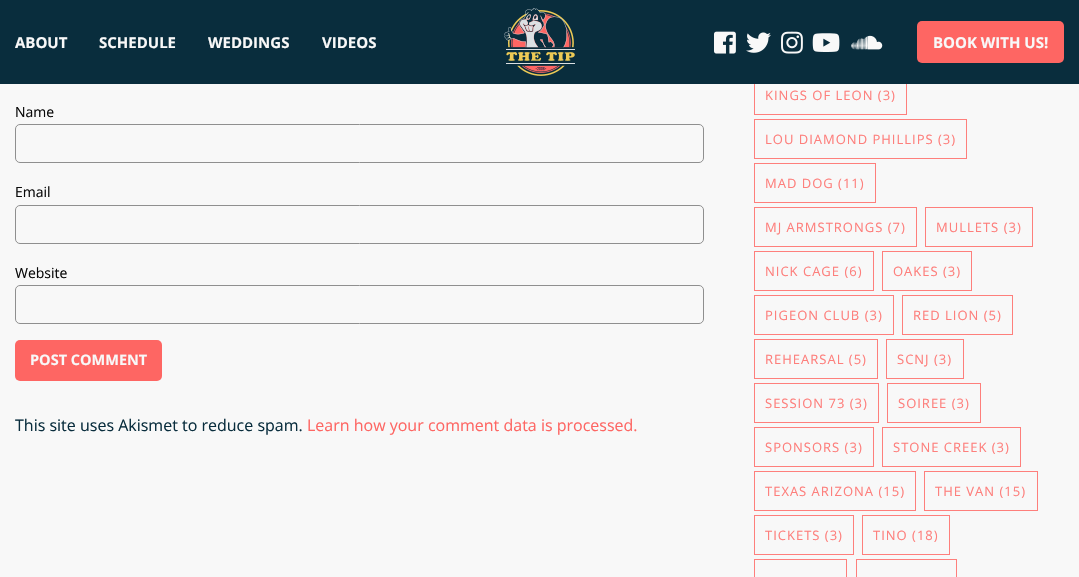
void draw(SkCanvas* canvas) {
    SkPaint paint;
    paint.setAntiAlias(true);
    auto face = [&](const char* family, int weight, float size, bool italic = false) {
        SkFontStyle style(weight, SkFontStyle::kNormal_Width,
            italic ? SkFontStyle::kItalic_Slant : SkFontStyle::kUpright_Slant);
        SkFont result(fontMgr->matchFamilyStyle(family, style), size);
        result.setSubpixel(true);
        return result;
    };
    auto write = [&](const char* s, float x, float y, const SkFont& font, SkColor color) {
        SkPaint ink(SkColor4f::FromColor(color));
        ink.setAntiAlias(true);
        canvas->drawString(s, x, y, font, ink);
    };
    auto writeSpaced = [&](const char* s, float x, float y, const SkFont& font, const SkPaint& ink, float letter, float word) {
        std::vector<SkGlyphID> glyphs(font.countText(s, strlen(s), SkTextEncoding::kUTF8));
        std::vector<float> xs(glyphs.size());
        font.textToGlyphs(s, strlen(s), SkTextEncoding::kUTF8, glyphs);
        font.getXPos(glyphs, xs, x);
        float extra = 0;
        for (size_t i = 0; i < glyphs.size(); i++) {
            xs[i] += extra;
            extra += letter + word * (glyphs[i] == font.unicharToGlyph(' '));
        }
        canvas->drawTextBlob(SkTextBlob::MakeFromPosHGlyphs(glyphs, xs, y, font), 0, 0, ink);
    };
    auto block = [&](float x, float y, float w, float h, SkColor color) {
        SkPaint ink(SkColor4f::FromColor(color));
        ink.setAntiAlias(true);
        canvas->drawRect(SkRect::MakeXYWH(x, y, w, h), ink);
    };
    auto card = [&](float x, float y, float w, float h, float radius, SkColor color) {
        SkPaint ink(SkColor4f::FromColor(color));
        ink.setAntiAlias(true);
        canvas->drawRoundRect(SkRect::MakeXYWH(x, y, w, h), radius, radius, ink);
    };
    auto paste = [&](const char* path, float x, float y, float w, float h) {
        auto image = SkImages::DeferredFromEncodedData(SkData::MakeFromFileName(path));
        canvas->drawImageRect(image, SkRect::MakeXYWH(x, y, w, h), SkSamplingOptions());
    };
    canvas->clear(SkColorSetRGB(248, 248, 248));
    paint.setStyle(SkPaint::kStroke_Style);
    paint.setStrokeWidth(1);
    paint.setColor(SkColorSetRGB(254, 127, 124));
    canvas->drawRect(SkRect::MakeXYWH(754.5f, 75.5f, 152, 39), paint);
    block(0, 0, 1079, 84, SkColorSetRGB(9, 45, 61));
    auto kFont1 = face("Open Sans", 700, 15);
    write("ABOUT", 15, 48, kFont1, SkColorSetRGB(248, 248, 248));
    write("SCHEDULE", 99, 48, kFont1, SkColorSetRGB(248, 248, 248));
    write("WEDDINGS", 208, 48, kFont1, SkColorSetRGB(248, 248, 248));
    write("VIDEOS", 322, 48, kFont1, SkColorSetRGB(248, 248, 248));
    paste("pic1.png", 504, 8, 71, 68);
    paste("pic2.png", 714, 31, 22, 23);
    paste("pic3.png", 746, 32, 25, 21);
    paste("pic4.png", 781, 31, 22, 23);
    paste("pic5.png", 812, 33, 28, 19);
    paste("pic6.png", 851, 35, 32, 15);
    card(917, 21, 147, 42, 5, SkColorSetRGB(254, 102, 99));
    write("BOOK WITH US!", 933, 48, kFont1, SkColorSetRGB(248, 248, 248));
    auto kFont2 = face("Open Sans", 400, 14);
    write("Name", 15, 117, kFont2, SkColorSetRGB(10, 10, 10));
    paint.setColor(SkColorSetRGB(143, 143, 143));
    canvas->drawRoundRect(SkRect::MakeXYWH(15.5f, 124.5f, 688, 38), 4.5f, 4.5f, paint);
    write("Email", 15, 197, kFont2, SkColorSetRGB(10, 10, 10));
    canvas->drawRoundRect(SkRect::MakeXYWH(15.5f, 205.5f, 688, 38), 4.5f, 4.5f, paint);
    write("Website", 15, 278, kFont2, SkColorSetRGB(10, 10, 10));
    canvas->drawRoundRect(SkRect::MakeXYWH(15.5f, 285.5f, 688, 38), 4.5f, 4.5f, paint);
    card(15, 340, 147, 41, 5, SkColorSetRGB(254, 102, 99));
    auto kFont3 = face("Open Sans", 700, 14.5f);
    write("POST COMMENT", 30, 365, kFont3, SkColorSetRGB(248, 248, 248));
    auto kFont4 = face("Open Sans", 400, 16);
    write("This site uses Akismet to reduce spam.", 15, 431, kFont4, SkColorSetRGB(9, 45, 61));
    write("Learn how your comment data is processed.", 307, 431, kFont4, SkColorSetRGB(254, 102, 99));
    auto kFont5 = face("Open Sans", 400, 13);
    paint.setStyle(SkPaint::kFill_Style);
    paint.setColor(SkColorSetRGB(254, 127, 124));
    writeSpaced("KINGS OF LEON (3)", 765, 100, kFont5, paint, 1, 0);
    paint.setStyle(SkPaint::kStroke_Style);
    canvas->drawRect(SkRect::MakeXYWH(754.5f, 119.5f, 212, 39), paint);
    paint.setStyle(SkPaint::kFill_Style);
    writeSpaced("LOU DIAMOND PHILLIPS (3)", 765, 144, kFont5, paint, 1, 0);
    paint.setStyle(SkPaint::kStroke_Style);
    canvas->drawRect(SkRect::MakeXYWH(754.5f, 163.5f, 121, 39), paint);
    paint.setStyle(SkPaint::kFill_Style);
    writeSpaced("MAD DOG (11)", 765, 188, kFont5, paint, 1, 0);
    paint.setStyle(SkPaint::kStroke_Style);
    canvas->drawRect(SkRect::MakeXYWH(754.5f, 207.5f, 162, 39), paint);
    paint.setStyle(SkPaint::kFill_Style);
    writeSpaced("MJ ARMSTRONGS (7)", 765, 232, kFont5, paint, 1, 0);
    paint.setStyle(SkPaint::kStroke_Style);
    canvas->drawRect(SkRect::MakeXYWH(925.5f, 207.5f, 107, 39), paint);
    paint.setStyle(SkPaint::kFill_Style);
    writeSpaced("MULLETS (3)", 936, 232, kFont5, paint, 1, 0);
    paint.setStyle(SkPaint::kStroke_Style);
    canvas->drawRect(SkRect::MakeXYWH(754.5f, 251.5f, 119, 39), paint);
    paint.setStyle(SkPaint::kFill_Style);
    writeSpaced("NICK CAGE (6)", 765, 276, kFont5, paint, 1, 0);
    paint.setStyle(SkPaint::kStroke_Style);
    canvas->drawRect(SkRect::MakeXYWH(882.5f, 251.5f, 89, 39), paint);
    paint.setStyle(SkPaint::kFill_Style);
    writeSpaced("OAKES (3)", 893, 276, kFont5, paint, 1, 0);
    paint.setStyle(SkPaint::kStroke_Style);
    canvas->drawRect(SkRect::MakeXYWH(754.5f, 295.5f, 139, 39), paint);
    paint.setStyle(SkPaint::kFill_Style);
    writeSpaced("PIGEON CLUB (3)", 765, 320, kFont5, paint, 1, 0);
    paint.setStyle(SkPaint::kStroke_Style);
    canvas->drawRect(SkRect::MakeXYWH(902.5f, 295.5f, 110, 39), paint);
    paint.setStyle(SkPaint::kFill_Style);
    writeSpaced("RED LION (5)", 913, 320, kFont5, paint, 1, 0);
    paint.setStyle(SkPaint::kStroke_Style);
    canvas->drawRect(SkRect::MakeXYWH(754.5f, 339.5f, 123, 39), paint);
    paint.setStyle(SkPaint::kFill_Style);
    writeSpaced("REHEARSAL (5)", 765, 364, kFont5, paint, 1, 0);
    paint.setStyle(SkPaint::kStroke_Style);
    canvas->drawRect(SkRect::MakeXYWH(886.5f, 339.5f, 77, 39), paint);
    paint.setStyle(SkPaint::kFill_Style);
    writeSpaced("SCNJ (3)", 897, 364, kFont5, paint, 1, 0);
    paint.setStyle(SkPaint::kStroke_Style);
    canvas->drawRect(SkRect::MakeXYWH(754.5f, 383.5f, 124, 39), paint);
    paint.setStyle(SkPaint::kFill_Style);
    writeSpaced("SESSION 73 (3)", 765, 408, kFont5, paint, 1, 0);
    paint.setStyle(SkPaint::kStroke_Style);
    canvas->drawRect(SkRect::MakeXYWH(887.5f, 383.5f, 93, 39), paint);
    paint.setStyle(SkPaint::kFill_Style);
    writeSpaced("SOIREE (3)", 898, 408, kFont5, paint, 1, 0);
    paint.setStyle(SkPaint::kStroke_Style);
    canvas->drawRect(SkRect::MakeXYWH(754.5f, 427.5f, 119, 39), paint);
    paint.setStyle(SkPaint::kFill_Style);
    writeSpaced("SPONSORS (3)", 765, 452, kFont5, paint, 1, 0);
    paint.setStyle(SkPaint::kStroke_Style);
    canvas->drawRect(SkRect::MakeXYWH(882.5f, 427.5f, 138, 39), paint);
    paint.setStyle(SkPaint::kFill_Style);
    writeSpaced("STONE CREEK (3)", 893, 452, kFont5, paint, 1, 0);
    paint.setStyle(SkPaint::kStroke_Style);
    canvas->drawRect(SkRect::MakeXYWH(754.5f, 471.5f, 161, 39), paint);
    paint.setStyle(SkPaint::kFill_Style);
    writeSpaced("TEXAS ARIZONA (15)", 765, 496, kFont5, paint, 1, 0);
    paint.setStyle(SkPaint::kStroke_Style);
    canvas->drawRect(SkRect::MakeXYWH(924.5f, 471.5f, 113, 39), paint);
    paint.setStyle(SkPaint::kFill_Style);
    writeSpaced("THE VAN (15)", 935, 496, kFont5, paint, 1, 0);
    paint.setStyle(SkPaint::kStroke_Style);
    canvas->drawRect(SkRect::MakeXYWH(754.5f, 515.5f, 99, 39), paint);
    paint.setStyle(SkPaint::kFill_Style);
    writeSpaced("TICKETS (3)", 765, 540, kFont5, paint, 1, 0);
    paint.setStyle(SkPaint::kStroke_Style);
    canvas->drawRect(SkRect::MakeXYWH(862.5f, 515.5f, 87, 39), paint);
    paint.setStyle(SkPaint::kFill_Style);
    writeSpaced("TINO (18)", 873, 540, kFont5, paint, 1, 0);
    paint.setStyle(SkPaint::kStroke_Style);
    canvas->drawRect(SkRect::MakeXYWH(754.5f, 559.5f, 92, 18), paint);
    canvas->drawRect(SkRect::MakeXYWH(856.5f, 559.5f, 100, 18), paint);
}
